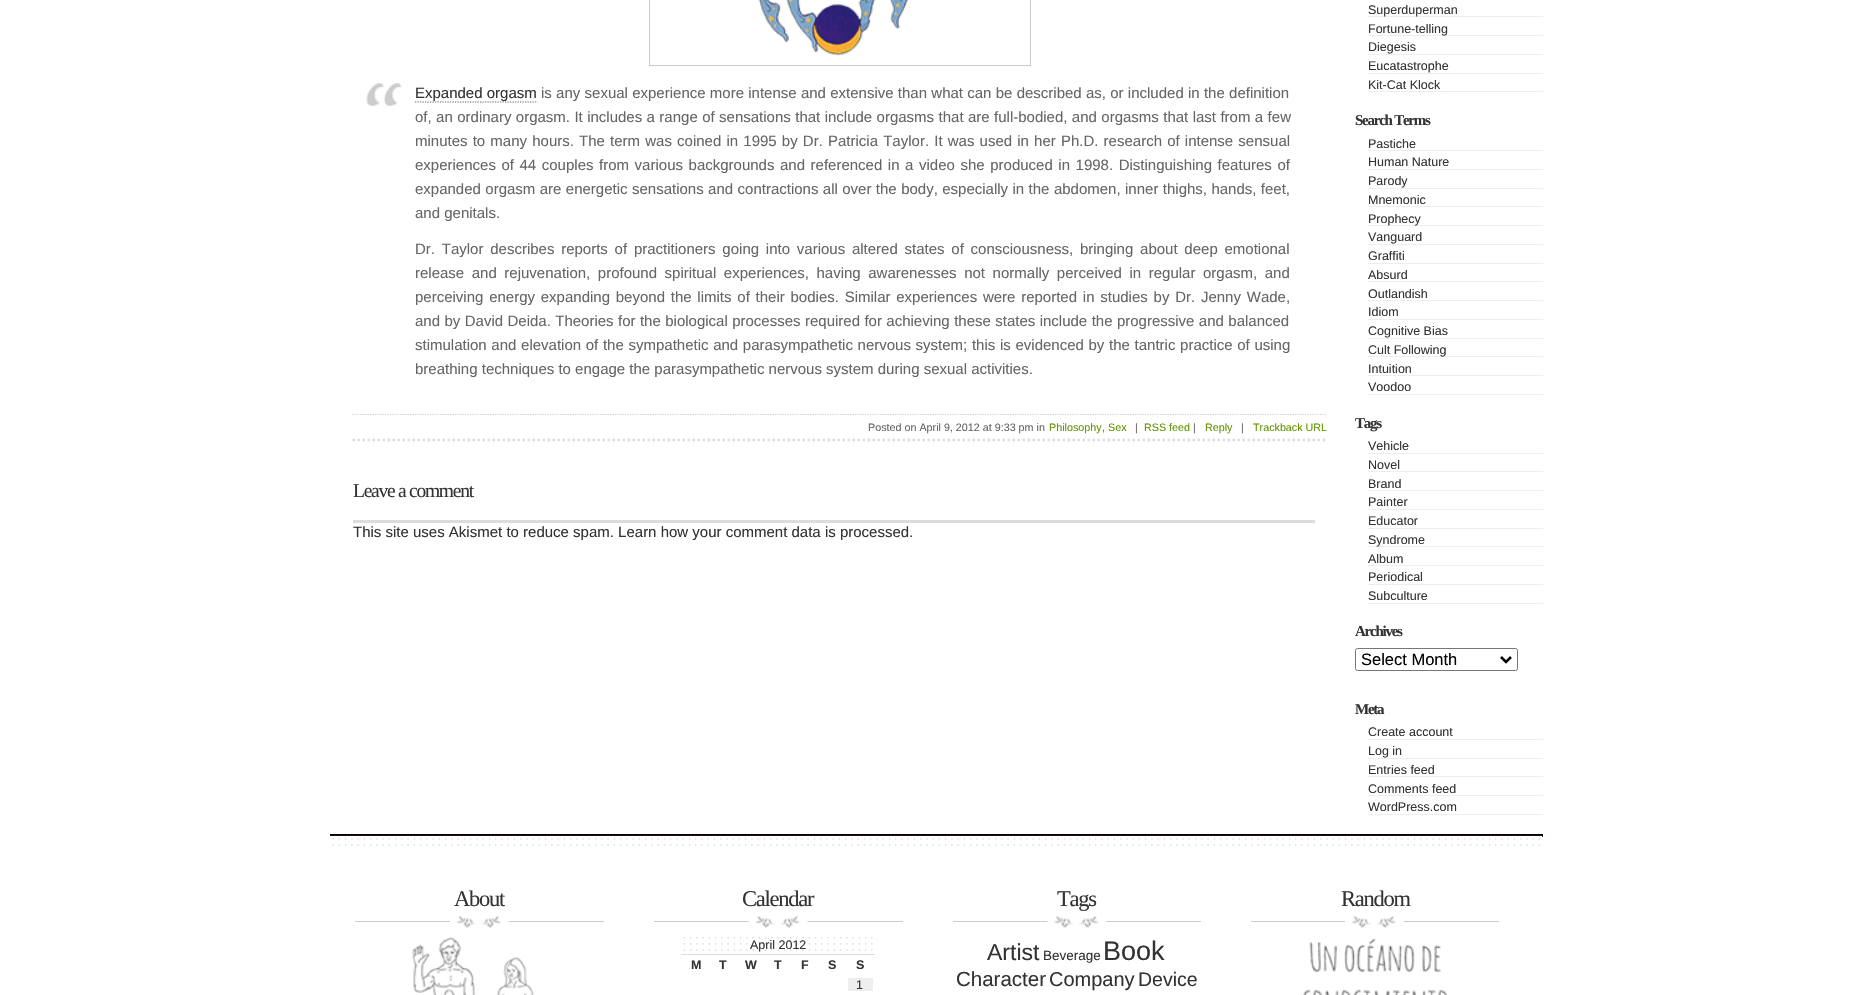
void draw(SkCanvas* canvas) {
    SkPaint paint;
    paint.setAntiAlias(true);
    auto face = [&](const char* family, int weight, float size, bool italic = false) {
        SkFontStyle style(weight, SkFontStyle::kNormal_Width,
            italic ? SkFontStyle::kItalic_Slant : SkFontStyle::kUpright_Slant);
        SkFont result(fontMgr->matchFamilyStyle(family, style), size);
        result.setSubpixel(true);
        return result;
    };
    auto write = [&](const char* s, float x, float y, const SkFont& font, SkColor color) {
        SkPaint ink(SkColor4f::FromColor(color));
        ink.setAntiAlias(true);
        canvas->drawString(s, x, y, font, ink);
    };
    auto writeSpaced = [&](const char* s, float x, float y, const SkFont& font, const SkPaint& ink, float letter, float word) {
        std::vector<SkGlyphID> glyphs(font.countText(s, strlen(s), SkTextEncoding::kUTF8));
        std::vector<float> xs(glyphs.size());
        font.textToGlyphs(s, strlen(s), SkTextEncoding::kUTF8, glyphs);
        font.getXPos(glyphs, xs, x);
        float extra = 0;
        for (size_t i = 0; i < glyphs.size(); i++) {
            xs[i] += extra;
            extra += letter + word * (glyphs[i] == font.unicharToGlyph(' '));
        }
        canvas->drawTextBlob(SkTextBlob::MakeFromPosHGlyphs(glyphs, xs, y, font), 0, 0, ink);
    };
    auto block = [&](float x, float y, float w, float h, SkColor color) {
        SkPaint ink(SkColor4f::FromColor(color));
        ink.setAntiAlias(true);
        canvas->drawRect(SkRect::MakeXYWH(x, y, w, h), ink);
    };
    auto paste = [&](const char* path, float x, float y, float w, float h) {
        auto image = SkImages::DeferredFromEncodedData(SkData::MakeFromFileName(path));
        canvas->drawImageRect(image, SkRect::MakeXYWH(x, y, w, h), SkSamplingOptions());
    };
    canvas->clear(SK_ColorWHITE);
    paint.setStyle(SkPaint::kStroke_Style);
    paint.setStrokeWidth(1);
    paint.setColor(SkColorSetRGB(204, 204, 204));
    canvas->drawRect(SkRect::MakeXYWH(649.5f, -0.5f, 381, 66), paint);
    paste("pic1.png", 758, 0, 150, 56);
    paste("pic2.png", 366, 83, 36, 23);
    paint.setStrokeWidth(1.2f);
    paint.setColor(SkColorSetRGB(102, 102, 102));
    paint.setPathEffect(SkDashPathEffect::Make({{1.25f, 1.25f}}, 0));
    canvas->drawPath(SkPathBuilder().moveTo(415, 102).lineTo(537.5f, 102).detach(), paint);
    paint.setPathEffect(nullptr);
    auto kFont1 = face("Liberation Sans", 400, 15);
    write("Expanded orgasm", 415, 98, kFont1, SkColorSetRGB(51, 51, 51));
    paint.setStyle(SkPaint::kFill_Style);
    writeSpaced("is any sexual experience more intense and extensive than what can be described as, or included in the definition", 541, 98, kFont1, paint, 0, 0.1f);
    writeSpaced("of, an ordinary orgasm. It includes a range of sensations that include orgasms that are full-bodied, and orgasms that last from a few", 415, 122, kFont1, paint, 0, 0.25f);
    writeSpaced("minutes to many hours. The term was coined in 1995 by Dr. Patricia Taylor. It was used in her Ph.D. research of intense sensual", 415, 146, kFont1, paint, 0, 1);
    writeSpaced("experiences of 44 couples from various backgrounds and referenced in a video she produced in 1998. Distinguishing features of", 415, 170, kFont1, paint, 0, 1.4f);
    writeSpaced("expanded orgasm are energetic sensations and contractions all over the body, especially in the abdomen, inner thighs, hands, feet,", 415, 194, kFont1, paint, 0, 0.25f);
    write("and genitals.", 415, 218, kFont1, SkColorSetRGB(102, 102, 102));
    writeSpaced("Dr. Taylor describes reports of practitioners going into various altered states of consciousness, bringing about deep emotional", 415, 254, kFont1, paint, 0, 2.6f);
    writeSpaced("release and rejuvenation, profound spiritual experiences, having awarenesses not normally perceived in regular orgasm, and", 415, 278, kFont1, paint, 0, 3.4f);
    writeSpaced("perceiving energy expanding beyond the limits of their bodies. Similar experiences were reported in studies by Dr. Jenny Wade,", 415, 302, kFont1, paint, 0, 1.6f);
    writeSpaced("and by David Deida. Theories for the biological processes required for achieving these states include the progressive and balanced", 415, 326, kFont1, paint, 0, 0.25f);
    writeSpaced("stimulation and elevation of the sympathetic and parasympathetic nervous system; this is evidenced by the tantric practice of using", 415, 350, kFont1, paint, 0, 0.5f);
    write("breathing techniques to engage the parasympathetic nervous system during sexual activities.", 415, 374, kFont1, SkColorSetRGB(102, 102, 102));
    paint.setStyle(SkPaint::kStroke_Style);
    paint.setColor(SkColorSetRGB(204, 204, 204));
    paint.setPathEffect(SkDashPathEffect::Make({{1.25f, 1.25f}}, 0));
    canvas->drawPath(SkPathBuilder().moveTo(352.5f, 414.5f).lineTo(1327.5f, 414.5f).detach(), paint);
    paint.setPathEffect(nullptr);
    paint.setStrokeWidth(2.5f);
    paint.setColor(SkColorSetRGB(221, 221, 221));
    paint.setPathEffect(SkDashPathEffect::Make({{2.5f, 2.5f}}, 0));
    canvas->drawPath(SkPathBuilder().moveTo(352.5f, 440).lineTo(1327.5f, 440).detach(), paint);
    paint.setPathEffect(nullptr);
    auto kFont2 = face("Liberation Sans", 400, 10.75f);
    write("Posted on April 9, 2012 at 9:33 pm in", 868, 431, kFont2, SkColorSetRGB(102, 102, 102));
    write("Philosophy", 1049, 431, kFont2, SkColorSetRGB(97, 149, 0));
    write(",", 1102, 431, kFont2, SkColorSetRGB(102, 102, 102));
    write("Sex", 1108, 431, kFont2, SkColorSetRGB(97, 149, 0));
    write("|", 1135, 431, kFont2, SkColorSetRGB(102, 102, 102));
    write("RSS feed", 1144, 431, kFont2, SkColorSetRGB(97, 149, 0));
    write("|", 1193, 431, kFont2, SkColorSetRGB(102, 102, 102));
    write("Reply", 1205, 431, kFont2, SkColorSetRGB(97, 149, 0));
    write("|", 1241, 431, kFont2, SkColorSetRGB(102, 102, 102));
    write("Trackback URL", 1253, 431, kFont2, SkColorSetRGB(97, 149, 0));
    auto kFont3 = face("Liberation Serif", 400, 19.5f);
    paint.setStyle(SkPaint::kFill_Style);
    paint.setColor(SkColorSetRGB(51, 51, 51));
    writeSpaced("Leave a comment", 353, 497, kFont3, paint, -1.25f, 0);
    block(353, 520, 962, 3, SkColorSetRGB(220, 220, 222));
    write("This site uses Akismet to reduce spam. Learn how your comment data is processed.", 353, 537, kFont1, SkColorSetRGB(51, 51, 51));
    block(1368, 16, 175, 1, SkColorSetRGB(238, 238, 238));
    auto kFont4 = face("Liberation Sans", 400, 12.5f);
    write("Superduperman", 1368, 14, kFont4, SkColorSetRGB(51, 51, 51));
    block(1368, 35, 175, 1, SkColorSetRGB(238, 238, 238));
    write("Fortune-telling", 1368, 33, kFont4, SkColorSetRGB(51, 51, 51));
    block(1368, 54, 175, 1, SkColorSetRGB(238, 238, 238));
    write("Diegesis", 1368, 51, kFont4, SkColorSetRGB(51, 51, 51));
    block(1368, 73, 175, 1, SkColorSetRGB(238, 238, 238));
    write("Eucatastrophe", 1368, 70, kFont4, SkColorSetRGB(51, 51, 51));
    block(1368, 91, 175, 1, SkColorSetRGB(238, 238, 238));
    write("Kit-Cat Klock", 1368, 89, kFont4, SkColorSetRGB(51, 51, 51));
    auto kFont5 = face("Liberation Serif", 700, 15);
    writeSpaced("Search Terms", 1355, 125, kFont5, paint, -1.25f, 0);
    block(1368, 150, 175, 1, SkColorSetRGB(238, 238, 238));
    write("Pastiche", 1368, 148, kFont4, SkColorSetRGB(51, 51, 51));
    block(1368, 169, 175, 1, SkColorSetRGB(238, 238, 238));
    write("Human Nature", 1368, 166, kFont4, SkColorSetRGB(51, 51, 51));
    block(1368, 188, 175, 1, SkColorSetRGB(238, 238, 238));
    write("Parody", 1368, 185, kFont4, SkColorSetRGB(51, 51, 51));
    block(1368, 206, 175, 1, SkColorSetRGB(238, 238, 238));
    write("Mnemonic", 1368, 204, kFont4, SkColorSetRGB(51, 51, 51));
    block(1368, 225, 175, 1, SkColorSetRGB(238, 238, 238));
    write("Prophecy", 1368, 223, kFont4, SkColorSetRGB(51, 51, 51));
    block(1368, 244, 175, 1, SkColorSetRGB(238, 238, 238));
    write("Vanguard", 1368, 241, kFont4, SkColorSetRGB(51, 51, 51));
    block(1368, 263, 175, 1, SkColorSetRGB(238, 238, 238));
    write("Graffiti", 1368, 260, kFont4, SkColorSetRGB(51, 51, 51));
    block(1368, 281, 175, 1, SkColorSetRGB(238, 238, 238));
    write("Absurd", 1368, 279, kFont4, SkColorSetRGB(51, 51, 51));
    block(1368, 300, 175, 1, SkColorSetRGB(238, 238, 238));
    write("Outlandish", 1368, 298, kFont4, SkColorSetRGB(51, 51, 51));
    block(1368, 319, 175, 1, SkColorSetRGB(238, 238, 238));
    write("Idiom", 1368, 316, kFont4, SkColorSetRGB(51, 51, 51));
    block(1368, 338, 175, 1, SkColorSetRGB(238, 238, 238));
    write("Cognitive Bias", 1368, 335, kFont4, SkColorSetRGB(51, 51, 51));
    block(1368, 356, 175, 1, SkColorSetRGB(238, 238, 238));
    write("Cult Following", 1368, 354, kFont4, SkColorSetRGB(51, 51, 51));
    block(1368, 375, 175, 1, SkColorSetRGB(238, 238, 238));
    write("Intuition", 1368, 373, kFont4, SkColorSetRGB(51, 51, 51));
    block(1368, 394, 175, 1, SkColorSetRGB(238, 238, 238));
    write("Voodoo", 1368, 391, kFont4, SkColorSetRGB(51, 51, 51));
    writeSpaced("Tags", 1355, 428, kFont5, paint, -1.25f, 0);
    block(1368, 453, 175, 1, SkColorSetRGB(238, 238, 238));
    write("Vehicle", 1368, 450, kFont4, SkColorSetRGB(51, 51, 51));
    block(1368, 471, 175, 1, SkColorSetRGB(238, 238, 238));
    write("Novel", 1368, 469, kFont4, SkColorSetRGB(51, 51, 51));
    block(1368, 490, 175, 1, SkColorSetRGB(238, 238, 238));
    write("Brand", 1368, 488, kFont4, SkColorSetRGB(51, 51, 51));
    block(1368, 509, 175, 1, SkColorSetRGB(238, 238, 238));
    write("Painter", 1368, 506, kFont4, SkColorSetRGB(51, 51, 51));
    block(1368, 528, 175, 1, SkColorSetRGB(238, 238, 238));
    write("Educator", 1368, 525, kFont4, SkColorSetRGB(51, 51, 51));
    block(1368, 546, 175, 1, SkColorSetRGB(238, 238, 238));
    write("Syndrome", 1368, 544, kFont4, SkColorSetRGB(51, 51, 51));
    block(1368, 565, 175, 1, SkColorSetRGB(238, 238, 238));
    write("Album", 1368, 563, kFont4, SkColorSetRGB(51, 51, 51));
    block(1368, 584, 175, 1, SkColorSetRGB(238, 238, 238));
    write("Periodical", 1368, 581, kFont4, SkColorSetRGB(51, 51, 51));
    block(1368, 603, 175, 1, SkColorSetRGB(238, 238, 238));
    write("Subculture", 1368, 600, kFont4, SkColorSetRGB(51, 51, 51));
    writeSpaced("Archives", 1355, 636, kFont5, paint, -1.25f, 0);
    paint.setStyle(SkPaint::kStroke_Style);
    paint.setStrokeWidth(1);
    paint.setColor(SkColorSetRGB(118, 118, 118));
    canvas->drawRoundRect(SkRect::MakeXYWH(1355.5f, 648.5f, 162, 22), 2, 2, paint);
    paint.setStrokeWidth(2.5f);
    paint.setColor(SK_ColorBLACK);
    canvas->drawPath(SkPathBuilder().moveTo(1501, 657).lineTo(1506, 662).lineTo(1511, 657).detach(), paint);
    auto kFont6 = face("Liberation Sans", 400, 16.5f);
    write("Select Month", 1361, 665, kFont6, SK_ColorBLACK);
    paint.setStyle(SkPaint::kFill_Style);
    paint.setColor(SkColorSetRGB(51, 51, 51));
    writeSpaced("Meta", 1355, 714, kFont5, paint, -1.25f, 0);
    block(1368, 739, 175, 1, SkColorSetRGB(238, 238, 238));
    write("Create account", 1368, 736, kFont4, SkColorSetRGB(51, 51, 51));
    block(1368, 758, 175, 1, SkColorSetRGB(238, 238, 238));
    write("Log in", 1368, 755, kFont4, SkColorSetRGB(51, 51, 51));
    block(1368, 776, 175, 1, SkColorSetRGB(238, 238, 238));
    write("Entries feed", 1368, 774, kFont4, SkColorSetRGB(51, 51, 51));
    block(1368, 795, 175, 1, SkColorSetRGB(238, 238, 238));
    write("Comments feed", 1368, 793, kFont4, SkColorSetRGB(51, 51, 51));
    block(1368, 814, 175, 1, SkColorSetRGB(238, 238, 238));
    write("WordPress.com", 1368, 811, kFont4, SkColorSetRGB(51, 51, 51));
    block(330, 834, 1213, 3, SkColorSetRGB(10, 0, 0));
    paste("pic3.png", 330, 835, 1213, 11);
    block(355, 921, 249, 1, SkColorSetRGB(204, 204, 204));
    paste("pic4.png", 450, 915, 59, 14);
    auto kFont7 = face("Liberation Serif", 400, 22.5f);
    writeSpaced("About", 454, 906, kFont7, paint, -1.25f, 0);
    paste("pic5.png", 412, 937, 123, 58);
    block(654, 921, 249, 1, SkColorSetRGB(204, 204, 204));
    paste("pic6.png", 748, 915, 60, 14);
    writeSpaced("Calendar", 742, 906, kFont7, paint, -1.25f, 0);
    paste("pic7.png", 683, 937, 190, 14);
    block(681, 954, 194, 1, SkColorSetRGB(221, 221, 221));
    write("April 2012", 750, 949, kFont4, SkColorSetRGB(51, 51, 51));
    auto kFont8 = face("Liberation Sans", 700, 12.5f);
    write("M", 691, 969, kFont8, SkColorSetRGB(51, 51, 51));
    write("T", 719, 969, kFont8, SkColorSetRGB(51, 51, 51));
    write("W", 745, 969, kFont8, SkColorSetRGB(51, 51, 51));
    write("T", 774, 969, kFont8, SkColorSetRGB(51, 51, 51));
    write("F", 801, 969, kFont8, SkColorSetRGB(51, 51, 51));
    write("S", 828, 969, kFont8, SkColorSetRGB(51, 51, 51));
    write("S", 856, 969, kFont8, SkColorSetRGB(51, 51, 51));
    block(848, 978, 25, 13, SkColorSetRGB(238, 238, 238));
    write("1", 856, 989, kFont4, SkColorSetRGB(51, 51, 51));
    block(953, 921, 248, 1, SkColorSetRGB(204, 204, 204));
    paste("pic8.png", 1047, 915, 60, 14);
    writeSpaced("Tags", 1057, 906, kFont7, paint, -1.25f, 0);
    auto kFont9 = face("Liberation Sans", 400, 23);
    write("Artist", 987, 960, kFont9, SkColorSetRGB(51, 51, 51));
    auto kFont10 = face("Liberation Sans", 400, 13.5f);
    write("Beverage", 1043, 960, kFont10, SkColorSetRGB(51, 51, 51));
    auto kFont11 = face("Liberation Sans", 400, 27);
    write("Book", 1103, 960, kFont11, SkColorSetRGB(51, 51, 51));
    auto kFont12 = face("Liberation Sans", 400, 20.5f);
    write("Character", 956, 986, kFont12, SkColorSetRGB(51, 51, 51));
    auto kFont13 = face("Liberation Sans", 400, 20);
    write("Company", 1049, 986, kFont13, SkColorSetRGB(51, 51, 51));
    auto kFont14 = face("Liberation Sans", 400, 19.5f);
    write("Device", 1138, 986, kFont14, SkColorSetRGB(51, 51, 51));
    block(1251, 921, 248, 1, SkColorSetRGB(204, 204, 204));
    paste("pic9.png", 1345, 915, 59, 14);
    writeSpaced("Random", 1341, 906, kFont7, paint, -1.25f, 0);
    paste("pic10.png", 1303, 938, 144, 57);
}
